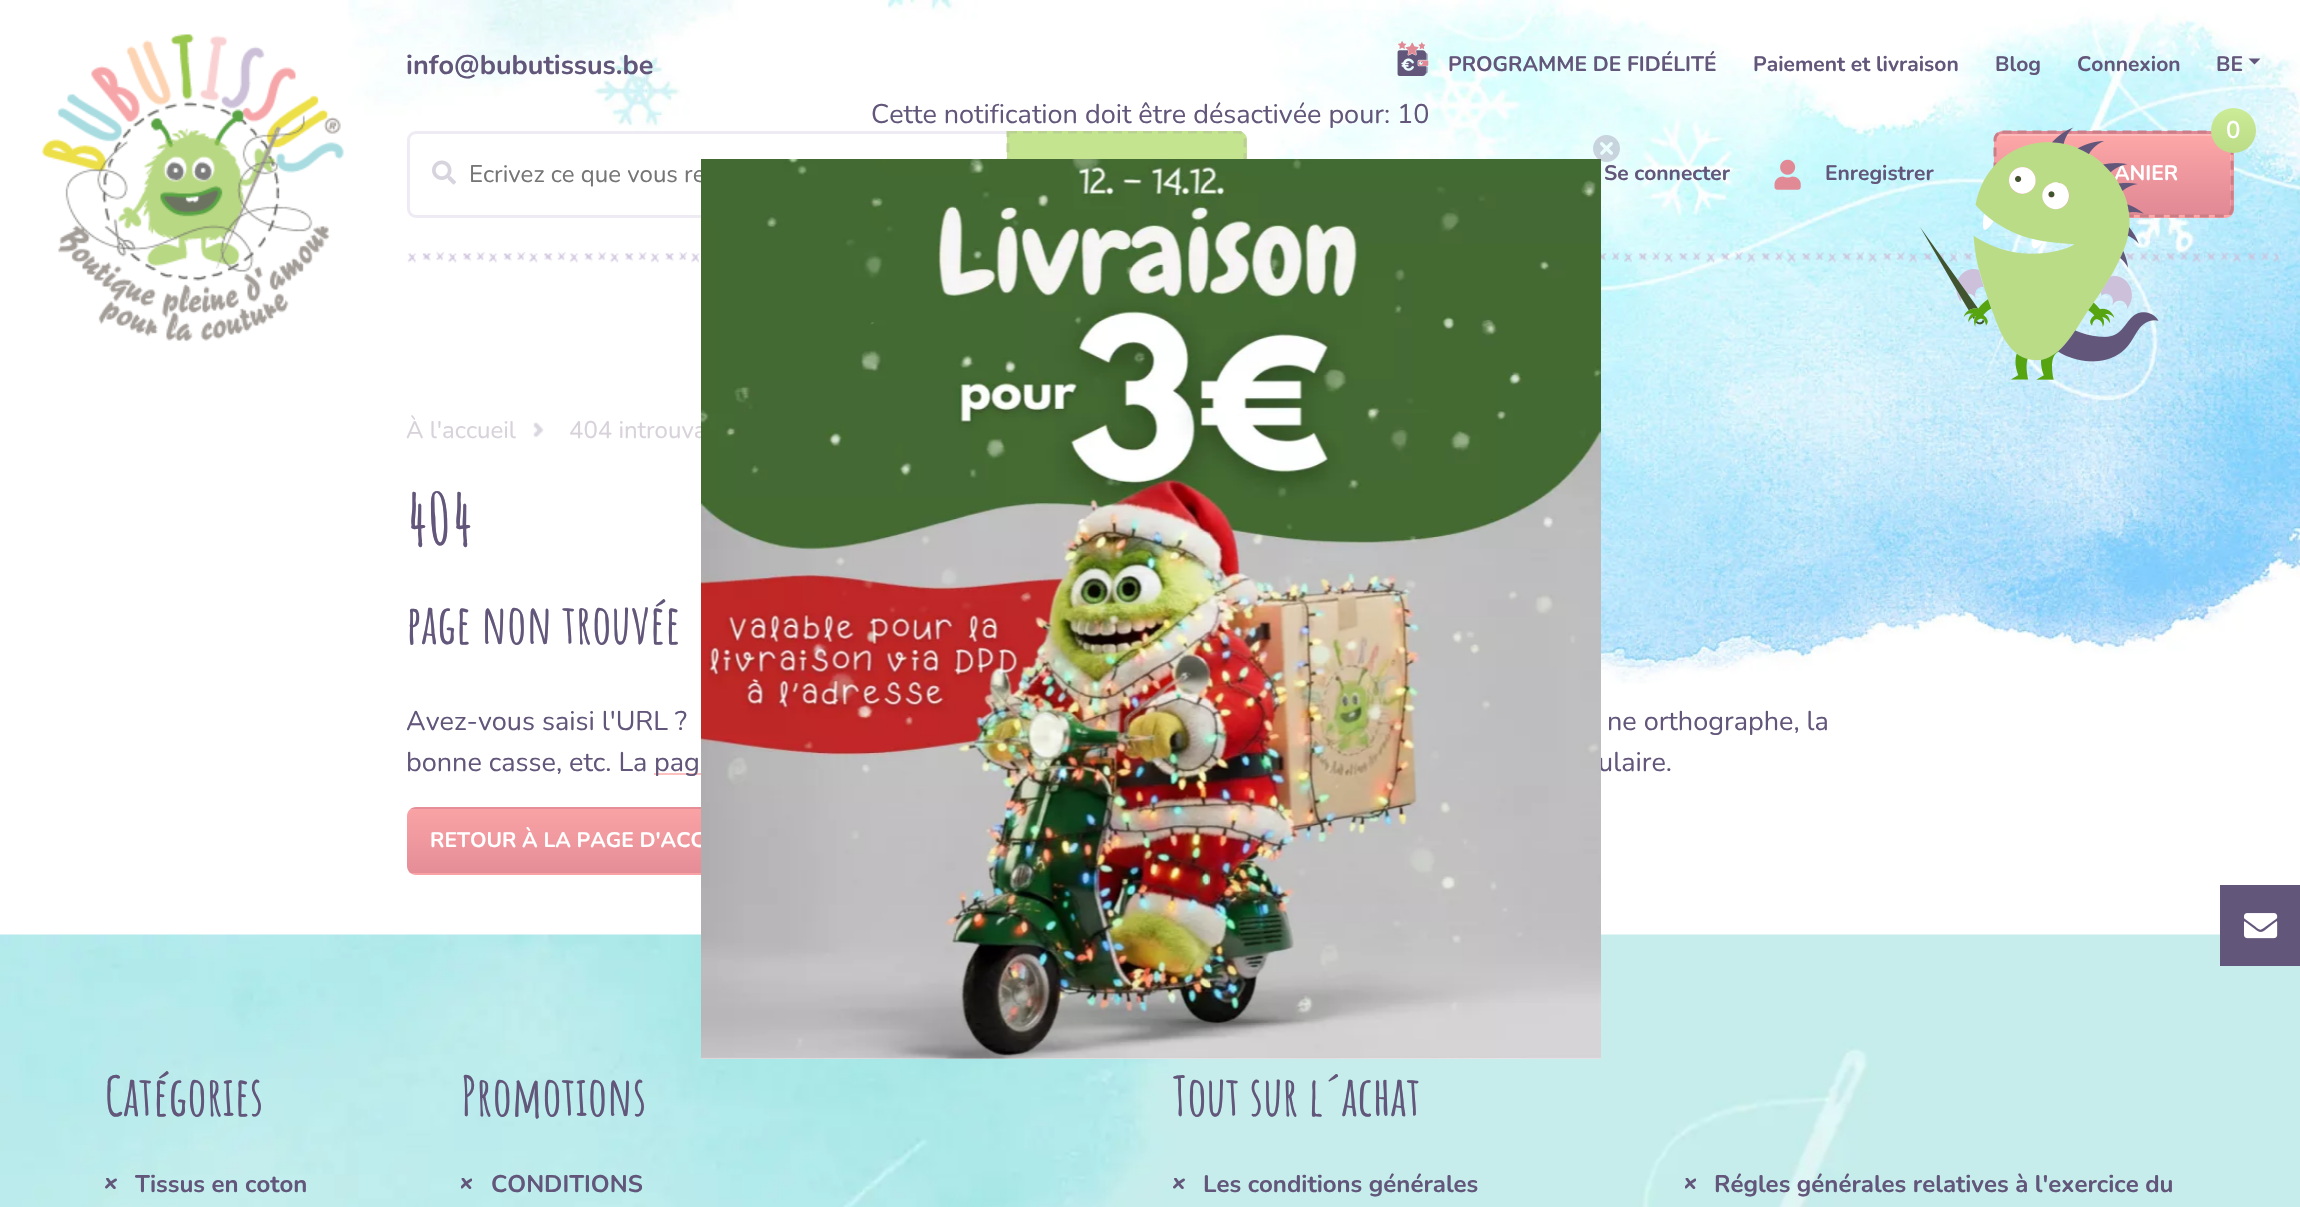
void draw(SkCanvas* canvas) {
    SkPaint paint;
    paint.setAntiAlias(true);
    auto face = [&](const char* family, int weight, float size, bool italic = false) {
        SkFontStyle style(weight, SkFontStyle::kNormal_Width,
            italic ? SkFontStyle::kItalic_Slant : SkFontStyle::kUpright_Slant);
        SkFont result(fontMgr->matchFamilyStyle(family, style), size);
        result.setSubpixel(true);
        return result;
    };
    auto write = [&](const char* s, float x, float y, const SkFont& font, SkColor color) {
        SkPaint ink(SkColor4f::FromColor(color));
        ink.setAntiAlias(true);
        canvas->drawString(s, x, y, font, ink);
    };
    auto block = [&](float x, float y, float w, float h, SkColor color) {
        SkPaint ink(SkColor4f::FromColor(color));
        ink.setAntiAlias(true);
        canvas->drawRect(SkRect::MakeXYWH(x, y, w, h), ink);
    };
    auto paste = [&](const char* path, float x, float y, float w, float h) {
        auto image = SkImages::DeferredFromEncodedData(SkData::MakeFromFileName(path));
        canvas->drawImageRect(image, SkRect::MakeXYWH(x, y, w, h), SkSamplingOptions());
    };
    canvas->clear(SK_ColorWHITE);
    paste("pic1.png", 348, 0, 1952, 684);
    paste("pic2.png", 41, 34, 303, 308);
    paste("pic3.png", 407, 252, 1872, 11);
    auto kFont1 = face("Nunito", 700, 27);
    write("info@bubutissus.be", 406, 74, kFont1, SkColorSetRGB(98, 86, 122));
    paste("pic4.png", 1397, 41, 32, 35);
    auto kFont2 = face("Nunito", 700, 21);
    write("PROGRAMME DE FIDÉLITÉ", 1448, 71, kFont2, SkColorSetRGB(98, 86, 122));
    write("Paiement et livraison", 1753, 71, kFont2, SkColorSetRGB(98, 86, 122));
    write("Blog", 1995, 71, kFont2, SkColorSetRGB(98, 86, 122));
    write("Connexion", 2077, 71, kFont2, SkColorSetRGB(98, 86, 122));
    write("BE", 2216, 71, kFont2, SkColorSetRGB(98, 86, 122));
    paint.setColor(SkColorSetRGB(98, 86, 122));
    canvas->drawPath(SkPathBuilder().moveTo(2248.5f, 58.5f).lineTo(2260.5f, 58.5f).lineTo(2254.5f, 64.5f).close().detach(), paint);
    paint.setColor(SK_ColorWHITE);
    canvas->drawRoundRect(SkRect::MakeXYWH(408.5f, 132.5f, 837, 84), 7.5f, 7.5f, paint);
    paint.setStyle(SkPaint::kStroke_Style);
    paint.setStrokeWidth(3);
    paint.setColor(SkColorSetRGB(238, 235, 244));
    canvas->drawRoundRect(SkRect::MakeXYWH(408.5f, 132.5f, 837, 84), 7.5f, 7.5f, paint);
    paste("pic5.png", 432, 160, 24, 25);
    auto kFont3 = face("Nunito", 400, 24);
    write("Ecrivez ce que vous re", 469, 182, kFont3, SkColorSetRGB(117, 117, 117));
    paint.setStyle(SkPaint::kFill_Style);
    paint.setColor(SkColorSetRGB(196, 228, 144));
    canvas->drawPath(SkPathBuilder().moveTo(1007, 131).lineTo(1238, 131).cubicTo(1243, 131, 1247, 135, 1247, 140).lineTo(1247, 209).cubicTo(1247, 214, 1243, 218, 1238, 218).lineTo(1007, 218).close().detach(), paint);
    canvas->save();
    canvas->clipRect(SkRect::MakeXYWH(407, 131, 840, 87));
    paint.setStyle(SkPaint::kStroke_Style);
    paint.setColor(SkColorSetRGB(186, 209, 147));
    paint.setPathEffect(SkDashPathEffect::Make({{9, 6}}, 0));
    canvas->drawPath(SkPathBuilder().moveTo(1008, 132).lineTo(1237.5f, 132).cubicTo(1241.5f, 132, 1245, 135.5f, 1245, 139.5f).lineTo(1245, 208.5f).cubicTo(1245, 212.5f, 1241.5f, 216, 1237.5f, 216).lineTo(1008, 216).close().detach(), paint);
    paint.setPathEffect(nullptr);
    canvas->restore();
    write("Se connecter", 1604, 180, kFont2, SkColorSetRGB(98, 86, 122));
    paste("pic6.png", 1774, 159, 27, 31);
    write("Enregistrer", 1825, 180, kFont2, SkColorSetRGB(98, 86, 122));
    canvas->save();
    canvas->clipPath(SkPathBuilder().moveTo(2003, 131).lineTo(2225, 131).cubicTo(2230, 131, 2234, 135, 2234, 140).lineTo(2234, 209).cubicTo(2234, 214, 2230, 218, 2225, 218).lineTo(2003, 218).cubicTo(1998, 218, 1994, 214, 1994, 209).lineTo(1994, 140).cubicTo(1994, 135, 1998, 131, 2003, 131).close().detach(), true);
    paint.setStyle(SkPaint::kFill_Style);
    {
        const SkColor colors[] = {SkColorSetRGB(225, 137, 149), SkColorSetRGB(240, 153, 159), SkColorSetRGB(255, 168, 168)};
        const float stops[] = {0.01f, 0.57f, 1};
        const SkPoint ends[] = {{2114, 134}, {2114, 53}};
        paint.setShader(SkGradientShader::MakeLinear(ends, colors, stops, 3, SkTileMode::kClamp));
        paint.setAlpha(255);
    }
    canvas->drawRect(SkRect::MakeXYWH(1994, 131, 218, 3), paint);
    {
        const SkColor colors[] = {SkColorSetRGB(225, 137, 149), SkColorSetRGB(240, 153, 159), SkColorSetRGB(255, 168, 168)};
        const float stops[] = {0.01f, 0.57f, 1};
        const SkPoint ends[] = {{2114, 215}, {2114, 134}};
        paint.setShader(SkGradientShader::MakeLinear(ends, colors, stops, 3, SkTileMode::kClamp));
        paint.setAlpha(255);
    }
    canvas->drawRect(SkRect::MakeXYWH(1994, 134, 240, 81), paint);
    canvas->restore();
    paint.setShader(nullptr);
    paint.setColor(SkColorSetARGB(48, 255, 255, 255));
    canvas->drawPath(SkPathBuilder().moveTo(2002, 136).lineTo(2224, 136).cubicTo(2233, 136, 2230, 149, 2230, 154).lineTo(2230, 212).cubicTo(2231, 211, 2231, 210, 2231, 209).lineTo(2231, 140).cubicTo(2231, 137, 2228, 134, 2225, 134).lineTo(2003, 134).cubicTo(2000, 134, 1998, 136, 1997, 139).cubicTo(1998, 137, 2000, 136, 2002, 136).close().detach(), paint);
    canvas->save();
    canvas->clipPath(SkPathBuilder().moveTo(2003, 131).lineTo(2225, 131).cubicTo(2230, 131, 2234, 135, 2234, 140).lineTo(2234, 209).cubicTo(2234, 214, 2230, 218, 2225, 218).lineTo(2003, 218).cubicTo(1998, 218, 1994, 214, 1994, 209).lineTo(1994, 140).cubicTo(1994, 135, 1998, 131, 2003, 131).close().detach(), true);
    {
        const SkColor colors[] = {SkColorSetRGB(225, 137, 149), SkColorSetRGB(240, 153, 159), SkColorSetRGB(255, 168, 168)};
        const float stops[] = {0.01f, 0.57f, 1};
        const SkPoint ends[] = {{2114, 296}, {2114, 215}};
        paint.setShader(SkGradientShader::MakeLinear(ends, colors, stops, 3, SkTileMode::kClamp));
        paint.setAlpha(255);
    }
    canvas->drawRect(SkRect::MakeXYWH(2129, 215, 105, 3), paint);
    canvas->restore();
    paint.setStyle(SkPaint::kStroke_Style);
    paint.setShader(nullptr);
    paint.setColor(SkColorSetRGB(203, 126, 136));
    paint.setPathEffect(SkDashPathEffect::Make({{9, 6}}, 0));
    canvas->drawPath(SkPathBuilder().moveTo(2002.5f, 132).lineTo(2224.5f, 132).cubicTo(2228.5f, 132, 2232, 135.5f, 2232, 139.5f).lineTo(2232, 208.5f).cubicTo(2232, 212.5f, 2228.5f, 216, 2224.5f, 216).lineTo(2002.5f, 216).cubicTo(1998.5f, 216, 1995, 212.5f, 1995, 208.5f).lineTo(1995, 139.5f).cubicTo(1995, 135.5f, 1998.5f, 132, 2002.5f, 132).close().detach(), paint);
    paint.setPathEffect(nullptr);
    paint.setStyle(SkPaint::kFill_Style);
    {
        const SkColor colors[] = {SkColorSetRGB(188, 220, 135), SkColorSetRGB(196, 228, 144), SkColorSetRGB(204, 236, 152)};
        const float stops[] = {0.01f, 0.58f, 1};
        const SkPoint ends[] = {{2234, 153}, {2234, 108}};
        paint.setShader(SkGradientShader::MakeLinear(ends, colors, stops, 3, SkTileMode::kClamp));
        paint.setAlpha(255);
    }
    canvas->drawCircle(2233.5f, 130.5f, 22.5f, paint);
    auto kFont4 = face("Nunito", 600, 24);
    write("0", 2226, 138, kFont4, SK_ColorWHITE);
    write("ANIER", 2114, 180, kFont2, SK_ColorWHITE);
    paste("pic7.png", 2052, 182, 15, 6);
    auto kFont5 = face("Nunito", 400, 27);
    write("Cette notification doit être désactivée pour: 10", 871, 123, kFont5, SkColorSetRGB(98, 86, 122));
    write("404 introuva", 569, 438, kFont3, SkColorSetRGB(216, 210, 219));
    write("ulaire.", 1598, 771, kFont5, SkColorSetRGB(98, 86, 122));
    canvas->save();
    canvas->clipPath(SkPathBuilder().moveTo(416, 807).lineTo(765, 807).cubicTo(770, 807, 774, 811, 774, 816).lineTo(774, 866).cubicTo(774, 871, 770, 875, 765, 875).lineTo(416, 875).cubicTo(411, 875, 407, 871, 407, 866).lineTo(407, 816).cubicTo(407, 811, 411, 807, 416, 807).close().detach(), true);
    {
        const SkColor colors[] = {SkColorSetRGB(250, 163, 165), SkColorSetRGB(228, 141, 151)};
        const float stops[] = {0, 1};
        const SkPoint ends[] = {{590, 809}, {590, 873}};
        paint.setShader(SkGradientShader::MakeLinear(ends, colors, stops, 2, SkTileMode::kClamp));
        paint.setAlpha(255);
    }
    canvas->drawRect(SkRect::MakeXYWH(407, 809, 294, 64), paint);
    canvas->restore();
    write("RETOUR À LA PAGE D'ACC", 430, 847, kFont2, SK_ColorWHITE);
    paste("pic13.png", 0, 934, 2300, 273);
    paste("pic9.png", 701, 159, 900, 900);
    paste("pic8.png", 1593, 135, 27, 27);
    paste("pic10.png", 1920, 127, 239, 253);
    write("À l'accueil", 406, 438, kFont3, SkColorSetRGB(216, 210, 219));
    paste("pic11.png", 533, 422, 11, 16);
    auto kFont6 = face("Amatic SC", 700, 72);
    write("404", 406, 546, kFont6, SkColorSetRGB(98, 86, 122));
    auto kFont7 = face("Amatic SC", 700, 54);
    write("page non trouvée", 406, 644, kFont7, SkColorSetRGB(98, 86, 122));
    write("Avez-vous saisi l'URL ?", 406, 730, kFont5, SkColorSetRGB(98, 86, 122));
    write("ne orthographe, la", 1607, 730, kFont5, SkColorSetRGB(98, 86, 122));
    write("bonne casse, etc. La", 406, 771, kFont5, SkColorSetRGB(98, 86, 122));
    block(654, 773, 47, 2, SkColorSetRGB(253, 193, 192));
    write("pag", 654, 771, kFont5, SkColorSetRGB(98, 86, 122));
    canvas->save();
    canvas->clipPath(SkPathBuilder().moveTo(416, 807).lineTo(765, 807).cubicTo(770, 807, 774, 811, 774, 816).lineTo(774, 866).cubicTo(774, 871, 770, 875, 765, 875).lineTo(416, 875).cubicTo(411, 875, 407, 871, 407, 866).lineTo(407, 816).cubicTo(407, 811, 411, 807, 416, 807).close().detach(), true);
    {
        const SkColor colors[] = {SkColorSetRGB(250, 163, 165), SkColorSetRGB(228, 141, 151)};
        const float stops[] = {0, 1};
        const SkPoint ends[] = {{590, 744}, {590, 809}};
        paint.setShader(SkGradientShader::MakeLinear(ends, colors, stops, 2, SkTileMode::kClamp));
        paint.setAlpha(255);
    }
    canvas->drawRect(SkRect::MakeXYWH(407, 807, 294, 2), paint);
    {
        const SkColor colors[] = {SkColorSetRGB(250, 163, 165), SkColorSetRGB(228, 141, 151)};
        const float stops[] = {0, 1};
        const SkPoint ends[] = {{590, 873}, {590, 938}};
        paint.setShader(SkGradientShader::MakeLinear(ends, colors, stops, 2, SkTileMode::kClamp));
        paint.setAlpha(255);
    }
    canvas->drawRect(SkRect::MakeXYWH(407, 873, 294, 2), paint);
    canvas->restore();
    paste("pic12.png", 2220, 885, 80, 81);
    write("Catégories", 105, 1116, kFont7, SkColorSetRGB(98, 86, 122));
    paste("pic14.png", 105, 1178, 12, 11);
    auto kFont8 = face("Nunito", 700, 24);
    write("Tissus en coton", 135, 1192, kFont8, SkColorSetRGB(98, 86, 122));
    write("Promotions", 461, 1116, kFont7, SkColorSetRGB(98, 86, 122));
    paste("pic15.png", 461, 1178, 11, 11);
    write("CONDITIONS", 491, 1192, kFont8, SkColorSetRGB(98, 86, 122));
    write("Tout sur l´achat", 1173, 1116, kFont7, SkColorSetRGB(98, 86, 122));
    paste("pic16.png", 1173, 1178, 12, 11);
    write("Les conditions générales", 1203, 1192, kFont8, SkColorSetRGB(98, 86, 122));
    paste("pic17.png", 1685, 1178, 11, 11);
    write("Régles générales relatives à l'exercice du", 1714, 1192, kFont8, SkColorSetRGB(98, 86, 122));
}
